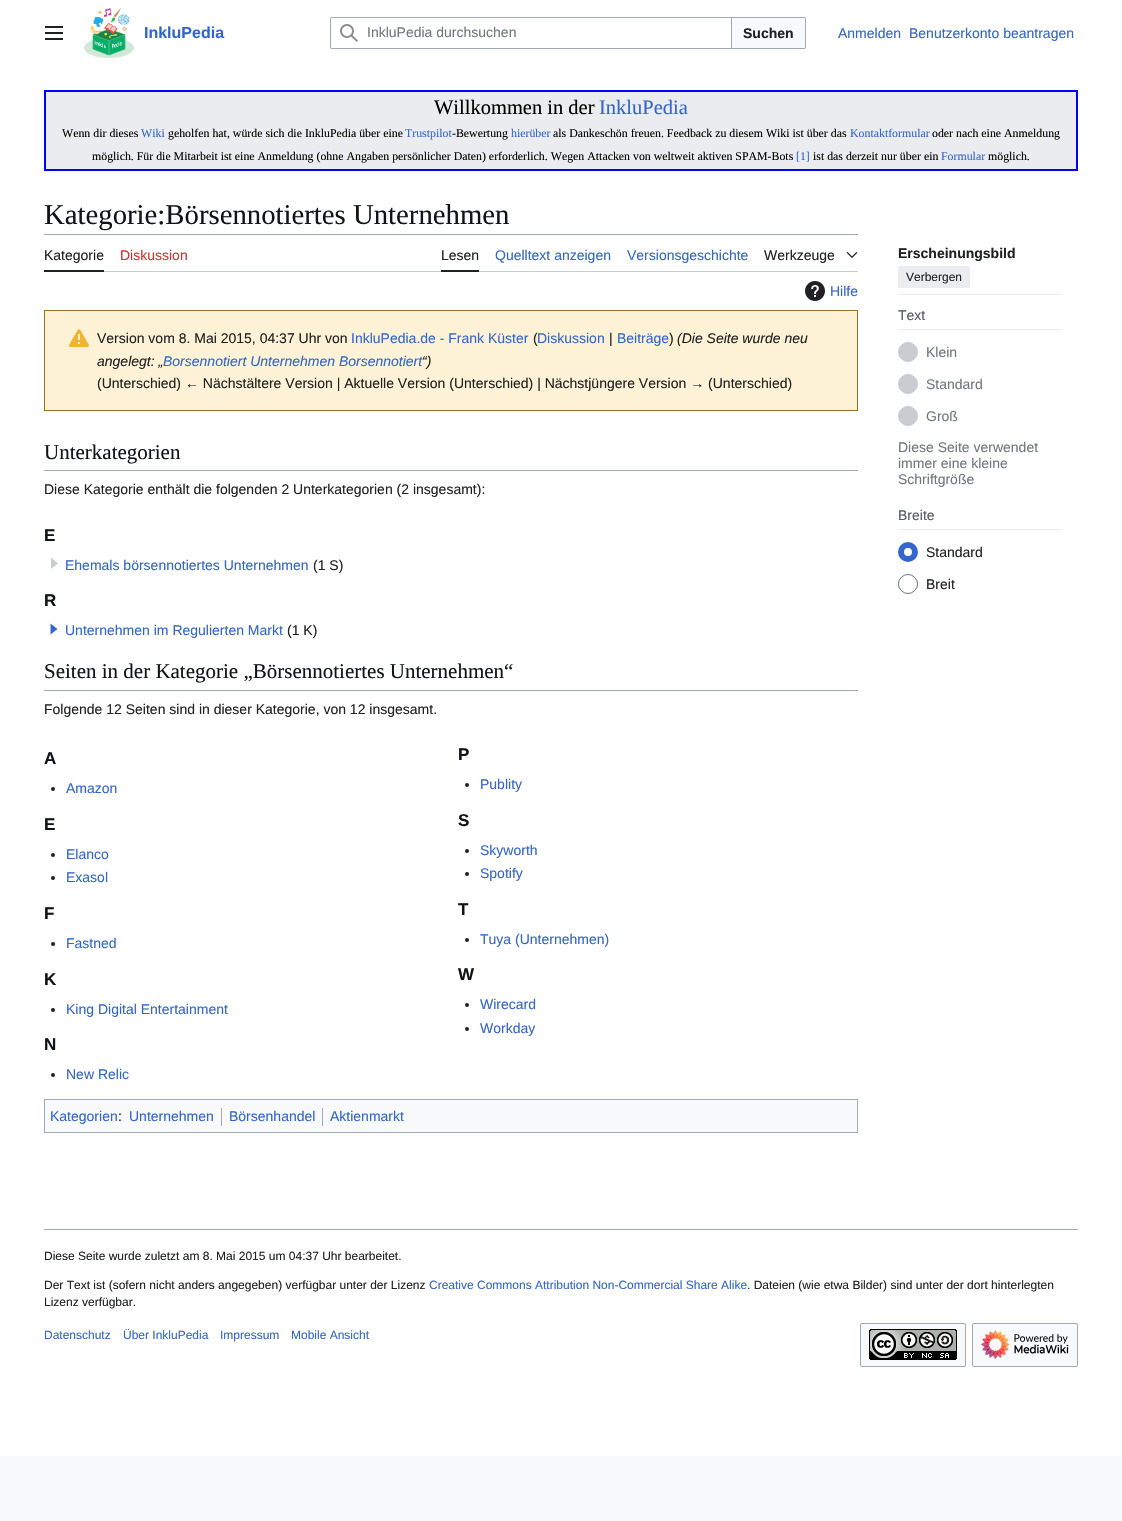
void draw(SkCanvas* canvas) {
    SkPaint paint;
    paint.setAntiAlias(true);
    auto face = [&](const char* family, int weight, float size, bool italic = false) {
        SkFontStyle style(weight, SkFontStyle::kNormal_Width,
            italic ? SkFontStyle::kItalic_Slant : SkFontStyle::kUpright_Slant);
        SkFont result(fontMgr->matchFamilyStyle(family, style), size);
        result.setSubpixel(true);
        return result;
    };
    auto write = [&](const char* s, float x, float y, const SkFont& font, SkColor color) {
        SkPaint ink(SkColor4f::FromColor(color));
        ink.setAntiAlias(true);
        canvas->drawString(s, x, y, font, ink);
    };
    auto block = [&](float x, float y, float w, float h, SkColor color) {
        SkPaint ink(SkColor4f::FromColor(color));
        ink.setAntiAlias(true);
        canvas->drawRect(SkRect::MakeXYWH(x, y, w, h), ink);
    };
    auto card = [&](float x, float y, float w, float h, float radius, SkColor color) {
        SkPaint ink(SkColor4f::FromColor(color));
        ink.setAntiAlias(true);
        canvas->drawRoundRect(SkRect::MakeXYWH(x, y, w, h), radius, radius, ink);
    };
    auto paste = [&](const char* path, float x, float y, float w, float h) {
        auto image = SkImages::DeferredFromEncodedData(SkData::MakeFromFileName(path));
        canvas->drawImageRect(image, SkRect::MakeXYWH(x, y, w, h), SkSamplingOptions());
    };
    canvas->clear(SkColorSetRGB(248, 249, 250));
    block(0, 0, 1122, 1456, SK_ColorWHITE);
    paste("pic1.png", 45, 26, 18, 14);
    paste("pic2.png", 84, 8, 50, 50);
    auto kFont1 = face("Liberation Sans", 700, 16);
    write("InkluPedia", 144, 38, kFont1, SkColorSetRGB(51, 102, 204));
    paint.setStyle(SkPaint::kStroke_Style);
    paint.setStrokeWidth(1);
    paint.setColor(SkColorSetRGB(162, 169, 177));
    canvas->drawRoundRect(SkRect::MakeXYWH(330.5f, 17.5f, 475, 31), 1.5f, 1.5f, paint);
    paint.setStyle(SkPaint::kFill_Style);
    paint.setColor(SkColorSetRGB(248, 249, 250));
    canvas->drawPath(SkPathBuilder().moveTo(731.5f, 17.5f).lineTo(804, 17.5f).cubicTo(805, 17.5f, 805.5f, 18, 805.5f, 19).lineTo(805.5f, 47).cubicTo(805.5f, 48, 805, 48.5f, 804, 48.5f).lineTo(731.5f, 48.5f).close().detach(), paint);
    paint.setStyle(SkPaint::kStroke_Style);
    paint.setColor(SkColorSetRGB(162, 169, 177));
    canvas->drawPath(SkPathBuilder().moveTo(731.5f, 17.5f).lineTo(804, 17.5f).cubicTo(805, 17.5f, 805.5f, 18, 805.5f, 19).lineTo(805.5f, 47).cubicTo(805.5f, 48, 805, 48.5f, 804, 48.5f).lineTo(731.5f, 48.5f).close().detach(), paint);
    paint.setStyle(SkPaint::kFill_Style);
    paint.setColor(SK_ColorWHITE);
    canvas->drawPath(SkPathBuilder().moveTo(332, 17).lineTo(732, 17).lineTo(732, 49).lineTo(332, 49).cubicTo(331, 49, 330, 48, 330, 47).lineTo(330, 19).cubicTo(330, 18, 331, 17, 332, 17).close().detach(), paint);
    paint.setColor(SkColorSetRGB(162, 169, 177));
    canvas->drawPath(SkPathBuilder(SkPathFillType::kEvenOdd).moveTo(332, 17).cubicTo(331, 17, 330, 18, 330, 19).lineTo(330, 47).cubicTo(330, 48, 331, 49, 332, 49).lineTo(732, 49).lineTo(732, 17).close().moveTo(331, 18).lineTo(331, 48).lineTo(731, 48).lineTo(731, 18).close().detach(), paint);
    paste("pic3.png", 340, 24, 18, 18);
    auto kFont2 = face("Liberation Sans", 400, 14);
    write("InkluPedia durchsuchen", 367, 37, kFont2, SkColorSetRGB(114, 119, 125));
    auto kFont3 = face("Liberation Sans", 700, 14);
    write("Suchen", 743, 38, kFont3, SkColorSetRGB(32, 33, 34));
    write("Anmelden", 838, 38, kFont2, SkColorSetRGB(51, 102, 204));
    write("Benutzerkonto beantragen", 909, 38, kFont2, SkColorSetRGB(51, 102, 204));
    paint.setColor(SkColorSetRGB(234, 236, 240));
    canvas->drawRect(SkRect::MakeXYWH(45, 91, 1032, 79), paint);
    paint.setStyle(SkPaint::kStroke_Style);
    paint.setStrokeWidth(2);
    paint.setColor(SkColorSetRGB(0, 0, 255));
    canvas->drawRect(SkRect::MakeXYWH(45, 91, 1032, 79), paint);
    auto kFont4 = face("Liberation Serif", 400, 20.5f);
    write("Willkommen in der", 434, 114, kFont4, SK_ColorBLACK);
    write("InkluPedia", 599, 114, kFont4, SkColorSetRGB(51, 102, 204));
    auto kFont5 = face("Liberation Serif", 400, 11.85f);
    write("Wenn dir dieses", 62, 137, kFont5, SK_ColorBLACK);
    write("Wiki", 141, 137, kFont5, SkColorSetRGB(51, 102, 204));
    write("geholfen hat, würde sich die InkluPedia über eine", 168, 137, kFont5, SK_ColorBLACK);
    write("Trustpilot", 405, 137, kFont5, SkColorSetRGB(51, 102, 204));
    write("-Bewertung", 452, 137, kFont5, SK_ColorBLACK);
    write("hierüber", 511, 137, kFont5, SkColorSetRGB(51, 102, 204));
    write("als Dankeschön freuen. Feedback zu diesem Wiki ist über das", 553, 137, kFont5, SK_ColorBLACK);
    write("Kontaktformular", 850, 137, kFont5, SkColorSetRGB(51, 102, 204));
    write("oder nach eine Anmeldung", 932, 137, kFont5, SK_ColorBLACK);
    write("möglich. Für die Mitarbeit ist eine Anmeldung (ohne Angaben persönlicher Daten) erforderlich. Wegen Attacken von weltweit aktiven SPAM-Bots", 92, 160, kFont5, SK_ColorBLACK);
    write("[1]", 796, 160, kFont5, SkColorSetRGB(51, 102, 204));
    write("ist das derzeit nur über ein", 813, 160, kFont5, SK_ColorBLACK);
    write("Formular", 941, 160, kFont5, SkColorSetRGB(51, 102, 204));
    write("möglich.", 988, 160, kFont5, SK_ColorBLACK);
    auto kFont6 = face("Liberation Serif", 400, 28.75f);
    write("Kategorie:Börsennotiertes Unternehmen", 44, 224, kFont6, SkColorSetRGB(16, 20, 24));
    block(44, 234, 814, 1, SkColorSetRGB(162, 169, 177));
    block(104, 271, 754, 1, SkColorSetRGB(200, 204, 209));
    block(44, 270, 60, 2, SkColorSetRGB(32, 33, 34));
    write("Kategorie", 44, 260, kFont2, SkColorSetRGB(32, 33, 34));
    write("Diskussion", 120, 260, kFont2, SkColorSetRGB(215, 51, 51));
    block(441, 270, 38, 2, SkColorSetRGB(32, 33, 34));
    write("Lesen", 441, 260, kFont2, SkColorSetRGB(32, 33, 34));
    write("Quelltext anzeigen", 495, 260, kFont2, SkColorSetRGB(51, 102, 204));
    write("Versionsgeschichte", 627, 260, kFont2, SkColorSetRGB(51, 102, 204));
    write("Werkzeuge", 764, 260, kFont2, SkColorSetRGB(32, 33, 34));
    paste("pic4.png", 846, 252, 12, 6);
    block(898, 294, 164, 1, SkColorSetRGB(234, 236, 240));
    write("Erscheinungsbild", 898, 258, kFont3, SkColorSetRGB(32, 33, 34));
    card(898, 266, 72, 22, 2, SkColorSetRGB(234, 236, 240));
    auto kFont7 = face("Liberation Sans", 400, 12);
    write("Verbergen", 906, 281, kFont7, SkColorSetRGB(32, 33, 34));
    block(898, 329, 164, 1, SkColorSetRGB(234, 236, 240));
    write("Text", 898, 320, kFont2, SkColorSetRGB(84, 89, 93));
    paint.setStyle(SkPaint::kFill_Style);
    paint.setColor(SkColorSetRGB(200, 204, 209));
    canvas->drawCircle(908, 352, 9.5f, paint);
    paint.setStyle(SkPaint::kStroke_Style);
    paint.setStrokeWidth(1);
    canvas->drawCircle(908, 352, 9.5f, paint);
    write("Klein", 926, 357, kFont2, SkColorSetRGB(114, 119, 125));
    paint.setStyle(SkPaint::kFill_Style);
    canvas->drawCircle(908, 384, 9.5f, paint);
    paint.setStyle(SkPaint::kStroke_Style);
    canvas->drawCircle(908, 384, 9.5f, paint);
    write("Standard", 926, 389, kFont2, SkColorSetRGB(114, 119, 125));
    paint.setStyle(SkPaint::kFill_Style);
    canvas->drawCircle(908, 416, 9.5f, paint);
    paint.setStyle(SkPaint::kStroke_Style);
    canvas->drawCircle(908, 416, 9.5f, paint);
    write("Groß", 926, 421, kFont2, SkColorSetRGB(114, 119, 125));
    write("Diese Seite verwendet", 898, 452, kFont2, SkColorSetRGB(114, 119, 125));
    write("immer eine kleine", 898, 468, kFont2, SkColorSetRGB(114, 119, 125));
    write("Schriftgröße", 898, 484, kFont2, SkColorSetRGB(114, 119, 125));
    block(898, 529, 164, 1, SkColorSetRGB(234, 236, 240));
    write("Breite", 898, 520, kFont2, SkColorSetRGB(84, 89, 93));
    paint.setStrokeWidth(6);
    paint.setColor(SkColorSetRGB(51, 102, 204));
    canvas->drawCircle(908, 552, 7, paint);
    write("Standard", 926, 557, kFont2, SkColorSetRGB(32, 33, 34));
    paint.setStrokeWidth(1);
    paint.setColor(SkColorSetRGB(114, 119, 125));
    canvas->drawCircle(908, 584, 9.5f, paint);
    write("Breit", 926, 589, kFont2, SkColorSetRGB(32, 33, 34));
    paste("pic5.png", 805, 281, 20, 20);
    write("Hilfe", 830, 296, kFont2, SkColorSetRGB(51, 102, 204));
    paint.setStyle(SkPaint::kFill_Style);
    paint.setColor(SkColorSetRGB(253, 242, 213));
    canvas->drawRect(SkRect::MakeXYWH(44.5f, 310.5f, 813, 100), paint);
    paint.setStyle(SkPaint::kStroke_Style);
    paint.setColor(SkColorSetRGB(152, 112, 39));
    canvas->drawRect(SkRect::MakeXYWH(44.5f, 310.5f, 813, 100), paint);
    paste("pic6.png", 69, 329, 20, 18);
    write("Version vom 8. Mai 2015, 04:37 Uhr von", 97, 343, kFont2, SkColorSetRGB(32, 33, 34));
    write("InkluPedia.de - Frank Küster", 351, 343, kFont2, SkColorSetRGB(51, 102, 204));
    write("(", 533, 343, kFont2, SkColorSetRGB(32, 33, 34));
    write("Diskussion", 537, 343, kFont2, SkColorSetRGB(51, 102, 204));
    write("|", 609, 343, kFont2, SkColorSetRGB(32, 33, 34));
    write("Beiträge", 617, 343, kFont2, SkColorSetRGB(51, 102, 204));
    write(")", 669, 343, kFont2, SkColorSetRGB(32, 33, 34));
    auto kFont8 = face("Liberation Sans", 400, 14, true);
    write("(Die Seite wurde neu", 677, 343, kFont8, SkColorSetRGB(32, 33, 34));
    write("angelegt: „", 97, 366, kFont8, SkColorSetRGB(32, 33, 34));
    write("Borsennotiert Unternehmen Borsennotiert", 163, 366, kFont8, SkColorSetRGB(51, 102, 204));
    write("“)", 422, 366, kFont8, SkColorSetRGB(32, 33, 34));
    write("(Unterschied) ← Nächstältere Version | Aktuelle Version (Unterschied) | Nächstjüngere Version → (Unterschied)", 97, 388, kFont2, SkColorSetRGB(32, 33, 34));
    block(44, 470, 814, 1, SkColorSetRGB(162, 169, 177));
    auto kFont9 = face("Liberation Serif", 400, 21);
    write("Unterkategorien", 44, 459, kFont9, SkColorSetRGB(16, 20, 24));
    write("Diese Kategorie enthält die folgenden 2 Unterkategorien (2 insgesamt):", 44, 494, kFont2, SkColorSetRGB(32, 33, 34));
    auto kFont10 = face("Liberation Sans", 700, 17);
    write("E", 44, 541, kFont10, SkColorSetRGB(16, 20, 24));
    paint.setStyle(SkPaint::kFill_Style);
    paint.setColor(SkColorSetRGB(200, 204, 209));
    canvas->drawPath(SkPathBuilder().moveTo(58, 563.5f).lineTo(51, 569).lineTo(51, 557.5f).close().detach(), paint);
    write("Ehemals börsennotiertes Unternehmen", 65, 570, kFont2, SkColorSetRGB(51, 102, 204));
    write("(1 S)", 313, 570, kFont2, SkColorSetRGB(32, 33, 34));
    write("R", 44, 606, kFont10, SkColorSetRGB(16, 20, 24));
    paint.setColor(SkColorSetRGB(51, 102, 204));
    canvas->drawPath(SkPathBuilder().moveTo(57.5f, 629).lineTo(50.5f, 634.5f).lineTo(50.5f, 623.5f).close().detach(), paint);
    write("Unternehmen im Regulierten Markt", 65, 635, kFont2, SkColorSetRGB(51, 102, 204));
    write("(1 K)", 287, 635, kFont2, SkColorSetRGB(32, 33, 34));
    block(44, 690, 814, 1, SkColorSetRGB(162, 169, 177));
    write("Seiten in der Kategorie „Börsennotiertes Unternehmen“", 44, 678, kFont9, SkColorSetRGB(16, 20, 24));
    write("Folgende 12 Seiten sind in dieser Kategorie, von 12 insgesamt.", 44, 714, kFont2, SkColorSetRGB(32, 33, 34));
    write("A", 44, 764, kFont10, SkColorSetRGB(16, 20, 24));
    paint.setColor(SkColorSetRGB(32, 33, 34));
    canvas->drawCircle(53, 789, 2, paint);
    write("Amazon", 66, 793, kFont2, SkColorSetRGB(51, 102, 204));
    write("P", 458, 760, kFont10, SkColorSetRGB(16, 20, 24));
    canvas->drawCircle(467, 785, 2, paint);
    write("Publity", 480, 789, kFont2, SkColorSetRGB(51, 102, 204));
    write("E", 44, 830, kFont10, SkColorSetRGB(16, 20, 24));
    canvas->drawCircle(53, 855, 2, paint);
    write("Elanco", 66, 859, kFont2, SkColorSetRGB(51, 102, 204));
    canvas->drawCircle(53, 878, 2, paint);
    write("Exasol", 66, 882, kFont2, SkColorSetRGB(51, 102, 204));
    write("S", 458, 826, kFont10, SkColorSetRGB(16, 20, 24));
    canvas->drawCircle(467, 851, 2, paint);
    write("Skyworth", 480, 855, kFont2, SkColorSetRGB(51, 102, 204));
    canvas->drawCircle(467, 874, 2, paint);
    write("Spotify", 480, 878, kFont2, SkColorSetRGB(51, 102, 204));
    write("F", 44, 919, kFont10, SkColorSetRGB(16, 20, 24));
    canvas->drawCircle(53, 944, 2, paint);
    write("Fastned", 66, 948, kFont2, SkColorSetRGB(51, 102, 204));
    write("T", 458, 915, kFont10, SkColorSetRGB(16, 20, 24));
    canvas->drawCircle(467, 940, 2, paint);
    write("Tuya (Unternehmen)", 480, 944, kFont2, SkColorSetRGB(51, 102, 204));
    write("K", 44, 985, kFont10, SkColorSetRGB(16, 20, 24));
    canvas->drawCircle(53, 1010, 2, paint);
    write("King Digital Entertainment", 66, 1014, kFont2, SkColorSetRGB(51, 102, 204));
    write("W", 458, 980, kFont10, SkColorSetRGB(16, 20, 24));
    canvas->drawCircle(467, 1005, 2, paint);
    write("Wirecard", 480, 1009, kFont2, SkColorSetRGB(51, 102, 204));
    canvas->drawCircle(467, 1029, 2, paint);
    write("Workday", 480, 1033, kFont2, SkColorSetRGB(51, 102, 204));
    write("N", 44, 1050, kFont10, SkColorSetRGB(16, 20, 24));
    canvas->drawCircle(53, 1075, 2, paint);
    write("New Relic", 66, 1079, kFont2, SkColorSetRGB(51, 102, 204));
    paint.setColor(SkColorSetRGB(248, 249, 250));
    canvas->drawRect(SkRect::MakeXYWH(44.5f, 1099.5f, 813, 33), paint);
    paint.setStyle(SkPaint::kStroke_Style);
    paint.setColor(SkColorSetRGB(162, 169, 177));
    canvas->drawRect(SkRect::MakeXYWH(44.5f, 1099.5f, 813, 33), paint);
    write("Kategorien", 50, 1121, kFont2, SkColorSetRGB(51, 102, 204));
    write(":", 118, 1121, kFont2, SkColorSetRGB(32, 33, 34));
    write("Unternehmen", 129, 1121, kFont2, SkColorSetRGB(51, 102, 204));
    block(221, 1108, 1, 18, SkColorSetRGB(162, 169, 177));
    write("Börsenhandel", 229, 1121, kFont2, SkColorSetRGB(51, 102, 204));
    block(322, 1108, 1, 18, SkColorSetRGB(162, 169, 177));
    write("Aktienmarkt", 330, 1121, kFont2, SkColorSetRGB(51, 102, 204));
    block(44, 1229, 1034, 1, SkColorSetRGB(162, 169, 177));
    write("Diese Seite wurde zuletzt am 8. Mai 2015 um 04:37 Uhr bearbeitet.", 44, 1260, kFont7, SkColorSetRGB(32, 33, 34));
    write("Der Text ist (sofern nicht anders angegeben) verfügbar unter der Lizenz", 44, 1289, kFont7, SkColorSetRGB(32, 33, 34));
    write("Creative Commons Attribution Non-Commercial Share Alike", 429, 1289, kFont7, SkColorSetRGB(51, 102, 204));
    write(". Dateien (wie etwa Bilder) sind unter der dort hinterlegten", 747, 1289, kFont7, SkColorSetRGB(32, 33, 34));
    write("Lizenz verfügbar.", 44, 1306, kFont7, SkColorSetRGB(32, 33, 34));
    write("Datenschutz", 44, 1339, kFont7, SkColorSetRGB(51, 102, 204));
    write("Über InkluPedia", 123, 1339, kFont7, SkColorSetRGB(51, 102, 204));
    write("Impressum", 220, 1339, kFont7, SkColorSetRGB(51, 102, 204));
    write("Mobile Ansicht", 291, 1339, kFont7, SkColorSetRGB(51, 102, 204));
    paint.setStyle(SkPaint::kFill_Style);
    paint.setColor(SkColorSetRGB(248, 249, 250));
    canvas->drawRoundRect(SkRect::MakeXYWH(860.5f, 1323.5f, 105, 43), 1.5f, 1.5f, paint);
    paint.setStyle(SkPaint::kStroke_Style);
    paint.setColor(SkColorSetRGB(162, 169, 177));
    canvas->drawRoundRect(SkRect::MakeXYWH(860.5f, 1323.5f, 105, 43), 1.5f, 1.5f, paint);
    paste("pic7.png", 869, 1329, 88, 31);
    paint.setStyle(SkPaint::kFill_Style);
    paint.setColor(SkColorSetRGB(248, 249, 250));
    canvas->drawRoundRect(SkRect::MakeXYWH(972.5f, 1323.5f, 105, 43), 1.5f, 1.5f, paint);
    paint.setStyle(SkPaint::kStroke_Style);
    paint.setColor(SkColorSetRGB(162, 169, 177));
    canvas->drawRoundRect(SkRect::MakeXYWH(972.5f, 1323.5f, 105, 43), 1.5f, 1.5f, paint);
    paste("pic8.png", 981, 1330, 88, 29);
}
